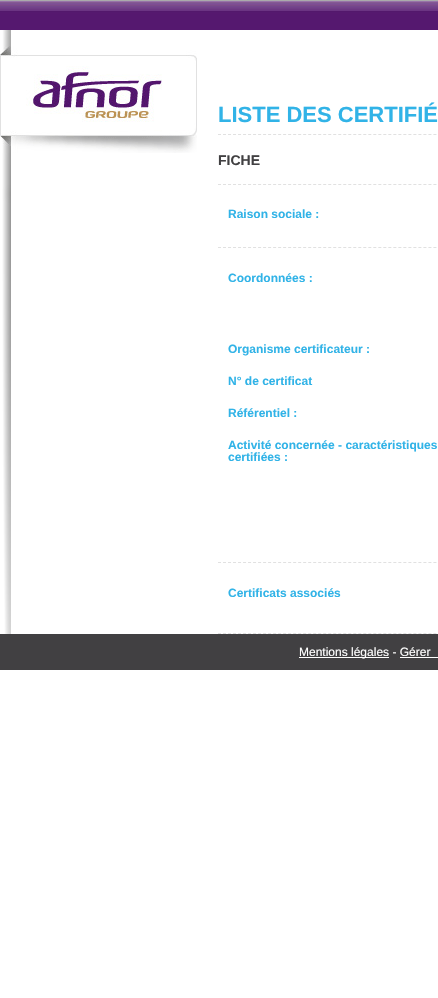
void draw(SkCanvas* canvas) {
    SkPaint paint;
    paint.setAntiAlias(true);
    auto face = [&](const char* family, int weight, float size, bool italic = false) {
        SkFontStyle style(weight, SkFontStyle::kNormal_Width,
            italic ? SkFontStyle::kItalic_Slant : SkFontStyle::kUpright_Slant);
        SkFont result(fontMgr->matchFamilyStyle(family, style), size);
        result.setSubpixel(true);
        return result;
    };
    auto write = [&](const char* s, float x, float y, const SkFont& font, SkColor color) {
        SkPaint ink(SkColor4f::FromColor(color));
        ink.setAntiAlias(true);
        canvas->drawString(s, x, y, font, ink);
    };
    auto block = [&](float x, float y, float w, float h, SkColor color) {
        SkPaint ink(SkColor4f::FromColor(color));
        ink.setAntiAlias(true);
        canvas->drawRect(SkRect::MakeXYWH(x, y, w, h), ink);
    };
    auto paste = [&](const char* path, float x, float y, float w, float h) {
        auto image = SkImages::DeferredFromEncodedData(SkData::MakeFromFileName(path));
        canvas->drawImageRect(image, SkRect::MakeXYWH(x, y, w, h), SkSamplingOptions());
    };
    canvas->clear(SK_ColorWHITE);
    paste("pic1.png", 0, 0, 438, 30);
    paste("pic2.png", 2, 30, 9, 604);
    paste("pic3.png", 0, 46, 197, 107);
    paint.setStyle(SkPaint::kStroke_Style);
    paint.setStrokeWidth(1);
    paint.setColor(SkColorSetRGB(225, 225, 225));
    paint.setPathEffect(SkDashPathEffect::Make({{3, 2.01f}}, 0));
    canvas->drawPath(SkPathBuilder().moveTo(218, 134.5f).lineTo(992, 134.5f).detach(), paint);
    paint.setPathEffect(nullptr);
    auto kFont1 = face("Liberation Sans", 700, 22);
    write("LISTE DES CERTIFIÉ", 218, 122, kFont1, SkColorSetRGB(49, 179, 231));
    paint.setPathEffect(SkDashPathEffect::Make({{3, 2.01f}}, 0));
    canvas->drawPath(SkPathBuilder().moveTo(218, 184.5f).lineTo(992, 184.5f).detach(), paint);
    paint.setPathEffect(nullptr);
    auto kFont2 = face("Liberation Sans", 700, 14);
    write("FICHE", 218, 165, kFont2, SkColorSetRGB(65, 64, 66));
    paint.setPathEffect(SkDashPathEffect::Make({{3, 2.01f}}, 0));
    canvas->drawPath(SkPathBuilder().moveTo(218, 633.5f).lineTo(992, 633.5f).detach(), paint);
    paint.setPathEffect(nullptr);
    auto kFont3 = face("Liberation Sans", 700, 12);
    write("Raison sociale :", 228, 218, kFont3, SkColorSetRGB(49, 179, 231));
    paint.setPathEffect(SkDashPathEffect::Make({{3, 2.01f}}, 0));
    canvas->drawPath(SkPathBuilder().moveTo(218, 247.5f).lineTo(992, 247.5f).detach(), paint);
    paint.setPathEffect(nullptr);
    write("Coordonnées :", 228, 282, kFont3, SkColorSetRGB(49, 179, 231));
    write("Organisme certificateur :", 228, 353, kFont3, SkColorSetRGB(49, 179, 231));
    write("N° de certificat", 228, 385, kFont3, SkColorSetRGB(49, 179, 231));
    write("Référentiel :", 228, 417, kFont3, SkColorSetRGB(49, 179, 231));
    write("Activité concernée - caractéristiques", 228, 449, kFont3, SkColorSetRGB(49, 179, 231));
    write("certifiées :", 228, 461, kFont3, SkColorSetRGB(49, 179, 231));
    paint.setPathEffect(SkDashPathEffect::Make({{3, 2.01f}}, 0));
    canvas->drawPath(SkPathBuilder().moveTo(218, 562.5f).lineTo(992, 562.5f).detach(), paint);
    paint.setPathEffect(nullptr);
    write("Certificats associés", 228, 597, kFont3, SkColorSetRGB(49, 179, 231));
    block(0, 634, 438, 36, SkColorSetRGB(65, 64, 66));
    block(299, 657, 90, 1, SK_ColorWHITE);
    auto kFont4 = face("Liberation Sans", 400, 12);
    write("Mentions légales - Gérer", 299, 656, kFont4, SK_ColorWHITE);
    block(400, 657, 38, 1, SK_ColorWHITE);
}
